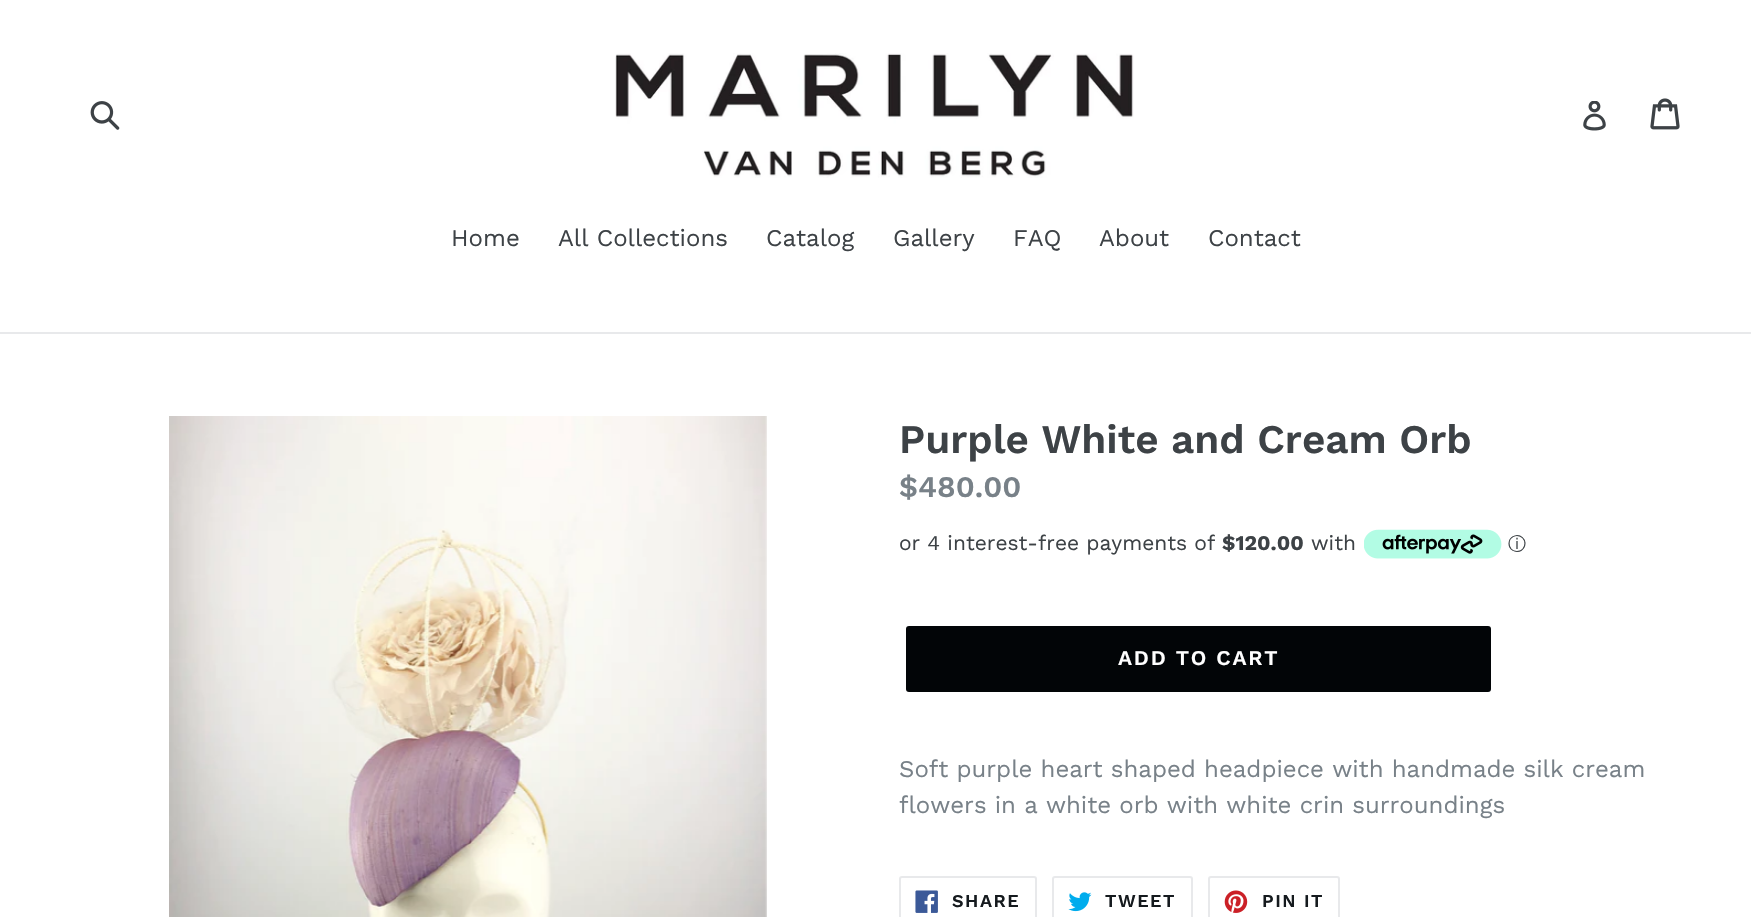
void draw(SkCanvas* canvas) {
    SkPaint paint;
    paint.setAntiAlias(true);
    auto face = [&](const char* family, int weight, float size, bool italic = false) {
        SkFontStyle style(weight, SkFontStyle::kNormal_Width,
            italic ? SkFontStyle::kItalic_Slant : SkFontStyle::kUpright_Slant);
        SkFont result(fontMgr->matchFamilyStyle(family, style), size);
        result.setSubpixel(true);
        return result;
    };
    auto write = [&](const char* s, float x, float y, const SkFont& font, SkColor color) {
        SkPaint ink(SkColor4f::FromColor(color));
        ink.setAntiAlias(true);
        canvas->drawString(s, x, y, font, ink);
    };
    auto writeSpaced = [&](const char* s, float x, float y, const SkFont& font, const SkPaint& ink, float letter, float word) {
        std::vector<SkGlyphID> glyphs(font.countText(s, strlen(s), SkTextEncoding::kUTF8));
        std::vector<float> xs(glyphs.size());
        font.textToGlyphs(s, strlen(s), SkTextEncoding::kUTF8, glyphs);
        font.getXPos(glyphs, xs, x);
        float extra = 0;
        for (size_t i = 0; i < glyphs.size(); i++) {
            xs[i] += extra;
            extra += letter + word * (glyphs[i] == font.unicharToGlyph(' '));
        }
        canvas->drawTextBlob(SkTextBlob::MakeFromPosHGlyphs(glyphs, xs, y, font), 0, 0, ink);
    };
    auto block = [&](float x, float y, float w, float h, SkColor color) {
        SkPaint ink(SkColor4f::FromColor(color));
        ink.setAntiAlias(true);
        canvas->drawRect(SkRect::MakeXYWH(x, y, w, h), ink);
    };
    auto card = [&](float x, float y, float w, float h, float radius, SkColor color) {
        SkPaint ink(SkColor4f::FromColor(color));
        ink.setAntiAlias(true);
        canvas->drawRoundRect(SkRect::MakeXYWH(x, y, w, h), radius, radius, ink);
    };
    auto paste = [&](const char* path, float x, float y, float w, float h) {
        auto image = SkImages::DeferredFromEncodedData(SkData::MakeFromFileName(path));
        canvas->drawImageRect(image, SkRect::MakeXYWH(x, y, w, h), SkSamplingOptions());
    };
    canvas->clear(SK_ColorWHITE);
    paste("pic1.png", 90, 101, 30, 29);
    paste("pic2.png", 615, 53, 519, 125);
    paste("pic3.png", 1583, 101, 23, 30);
    paste("pic4.png", 1650, 98, 30, 32);
    block(0, 332, 1751, 2, SkColorSetRGB(232, 233, 235));
    auto kFont1 = face("Work Sans", 400, 24);
    write("Home", 451, 246, kFont1, SkColorSetRGB(61, 66, 70));
    write("All Collections", 558, 246, kFont1, SkColorSetRGB(61, 66, 70));
    write("Catalog", 766, 246, kFont1, SkColorSetRGB(61, 66, 70));
    write("Gallery", 893, 246, kFont1, SkColorSetRGB(61, 66, 70));
    write("FAQ", 1013, 246, kFont1, SkColorSetRGB(61, 66, 70));
    write("About", 1099, 246, kFont1, SkColorSetRGB(61, 66, 70));
    write("Contact", 1208, 246, kFont1, SkColorSetRGB(61, 66, 70));
    paste("pic5.png", 169, 416, 598, 501);
    auto kFont2 = face("Work Sans", 600, 40.5f);
    write("Purple White and Cream Orb", 899, 453, kFont2, SkColorSetRGB(61, 66, 70));
    auto kFont3 = face("Work Sans", 600, 30);
    write("$480.00", 899, 497, kFont3, SkColorSetRGB(120, 129, 136));
    auto kFont4 = face("Work Sans", 400, 21);
    write("or 4 interest-free payments of", 899, 550, kFont4, SkColorSetRGB(61, 66, 70));
    auto kFont5 = face("Work Sans", 700, 21);
    write("$120.00", 1222, 550, kFont5, SkColorSetRGB(61, 66, 70));
    write("with", 1311, 550, kFont4, SkColorSetRGB(61, 66, 70));
    paste("pic6.png", 1364, 529, 138, 30);
    auto kFont6 = face("WenQuanYi Zen Hei", 500, 18);
    write("ⓘ", 1508, 550, kFont6, SkColorSetRGB(61, 66, 70));
    card(906, 626, 585, 66, 3, SkColorSetRGB(2, 5, 7));
    auto kFont7 = face("Work Sans", 600, 21);
    paint.setColor(SK_ColorWHITE);
    writeSpaced("ADD TO CART", 1118, 665, kFont7, paint, 1.75f, 0);
    write("Soft purple heart shaped headpiece with handmade silk cream", 899, 777, kFont1, SkColorSetRGB(120, 129, 136));
    write("flowers in a white orb with white crin surroundings", 899, 813, kFont1, SkColorSetRGB(120, 129, 136));
    paint.setStyle(SkPaint::kStroke_Style);
    paint.setStrokeWidth(2);
    paint.setColor(SkColorSetRGB(232, 233, 235));
    canvas->drawRoundRect(SkRect::MakeXYWH(900, 877, 136, 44), 2, 2, paint);
    paste("pic7.png", 915, 890, 23, 23);
    auto kFont8 = face("Work Sans", 600, 18);
    paint.setStyle(SkPaint::kFill_Style);
    paint.setColor(SkColorSetRGB(21, 26, 30));
    writeSpaced("SHARE", 952, 907, kFont8, paint, 1.5f, 0);
    paint.setStyle(SkPaint::kStroke_Style);
    paint.setColor(SkColorSetRGB(232, 233, 235));
    canvas->drawRoundRect(SkRect::MakeXYWH(1053, 877, 139, 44), 2, 2, paint);
    paste("pic8.png", 1068, 892, 24, 20);
    paint.setStyle(SkPaint::kFill_Style);
    paint.setColor(SkColorSetRGB(21, 26, 30));
    writeSpaced("TWEET", 1105, 907, kFont8, paint, 1.5f, 0);
    paint.setStyle(SkPaint::kStroke_Style);
    paint.setColor(SkColorSetRGB(232, 233, 235));
    canvas->drawRoundRect(SkRect::MakeXYWH(1209, 877, 130, 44), 2, 2, paint);
    paste("pic9.png", 1224, 890, 24, 23);
    paint.setStyle(SkPaint::kFill_Style);
    paint.setColor(SkColorSetRGB(21, 26, 30));
    writeSpaced("PIN IT", 1262, 907, kFont8, paint, 1.5f, 0);
}
